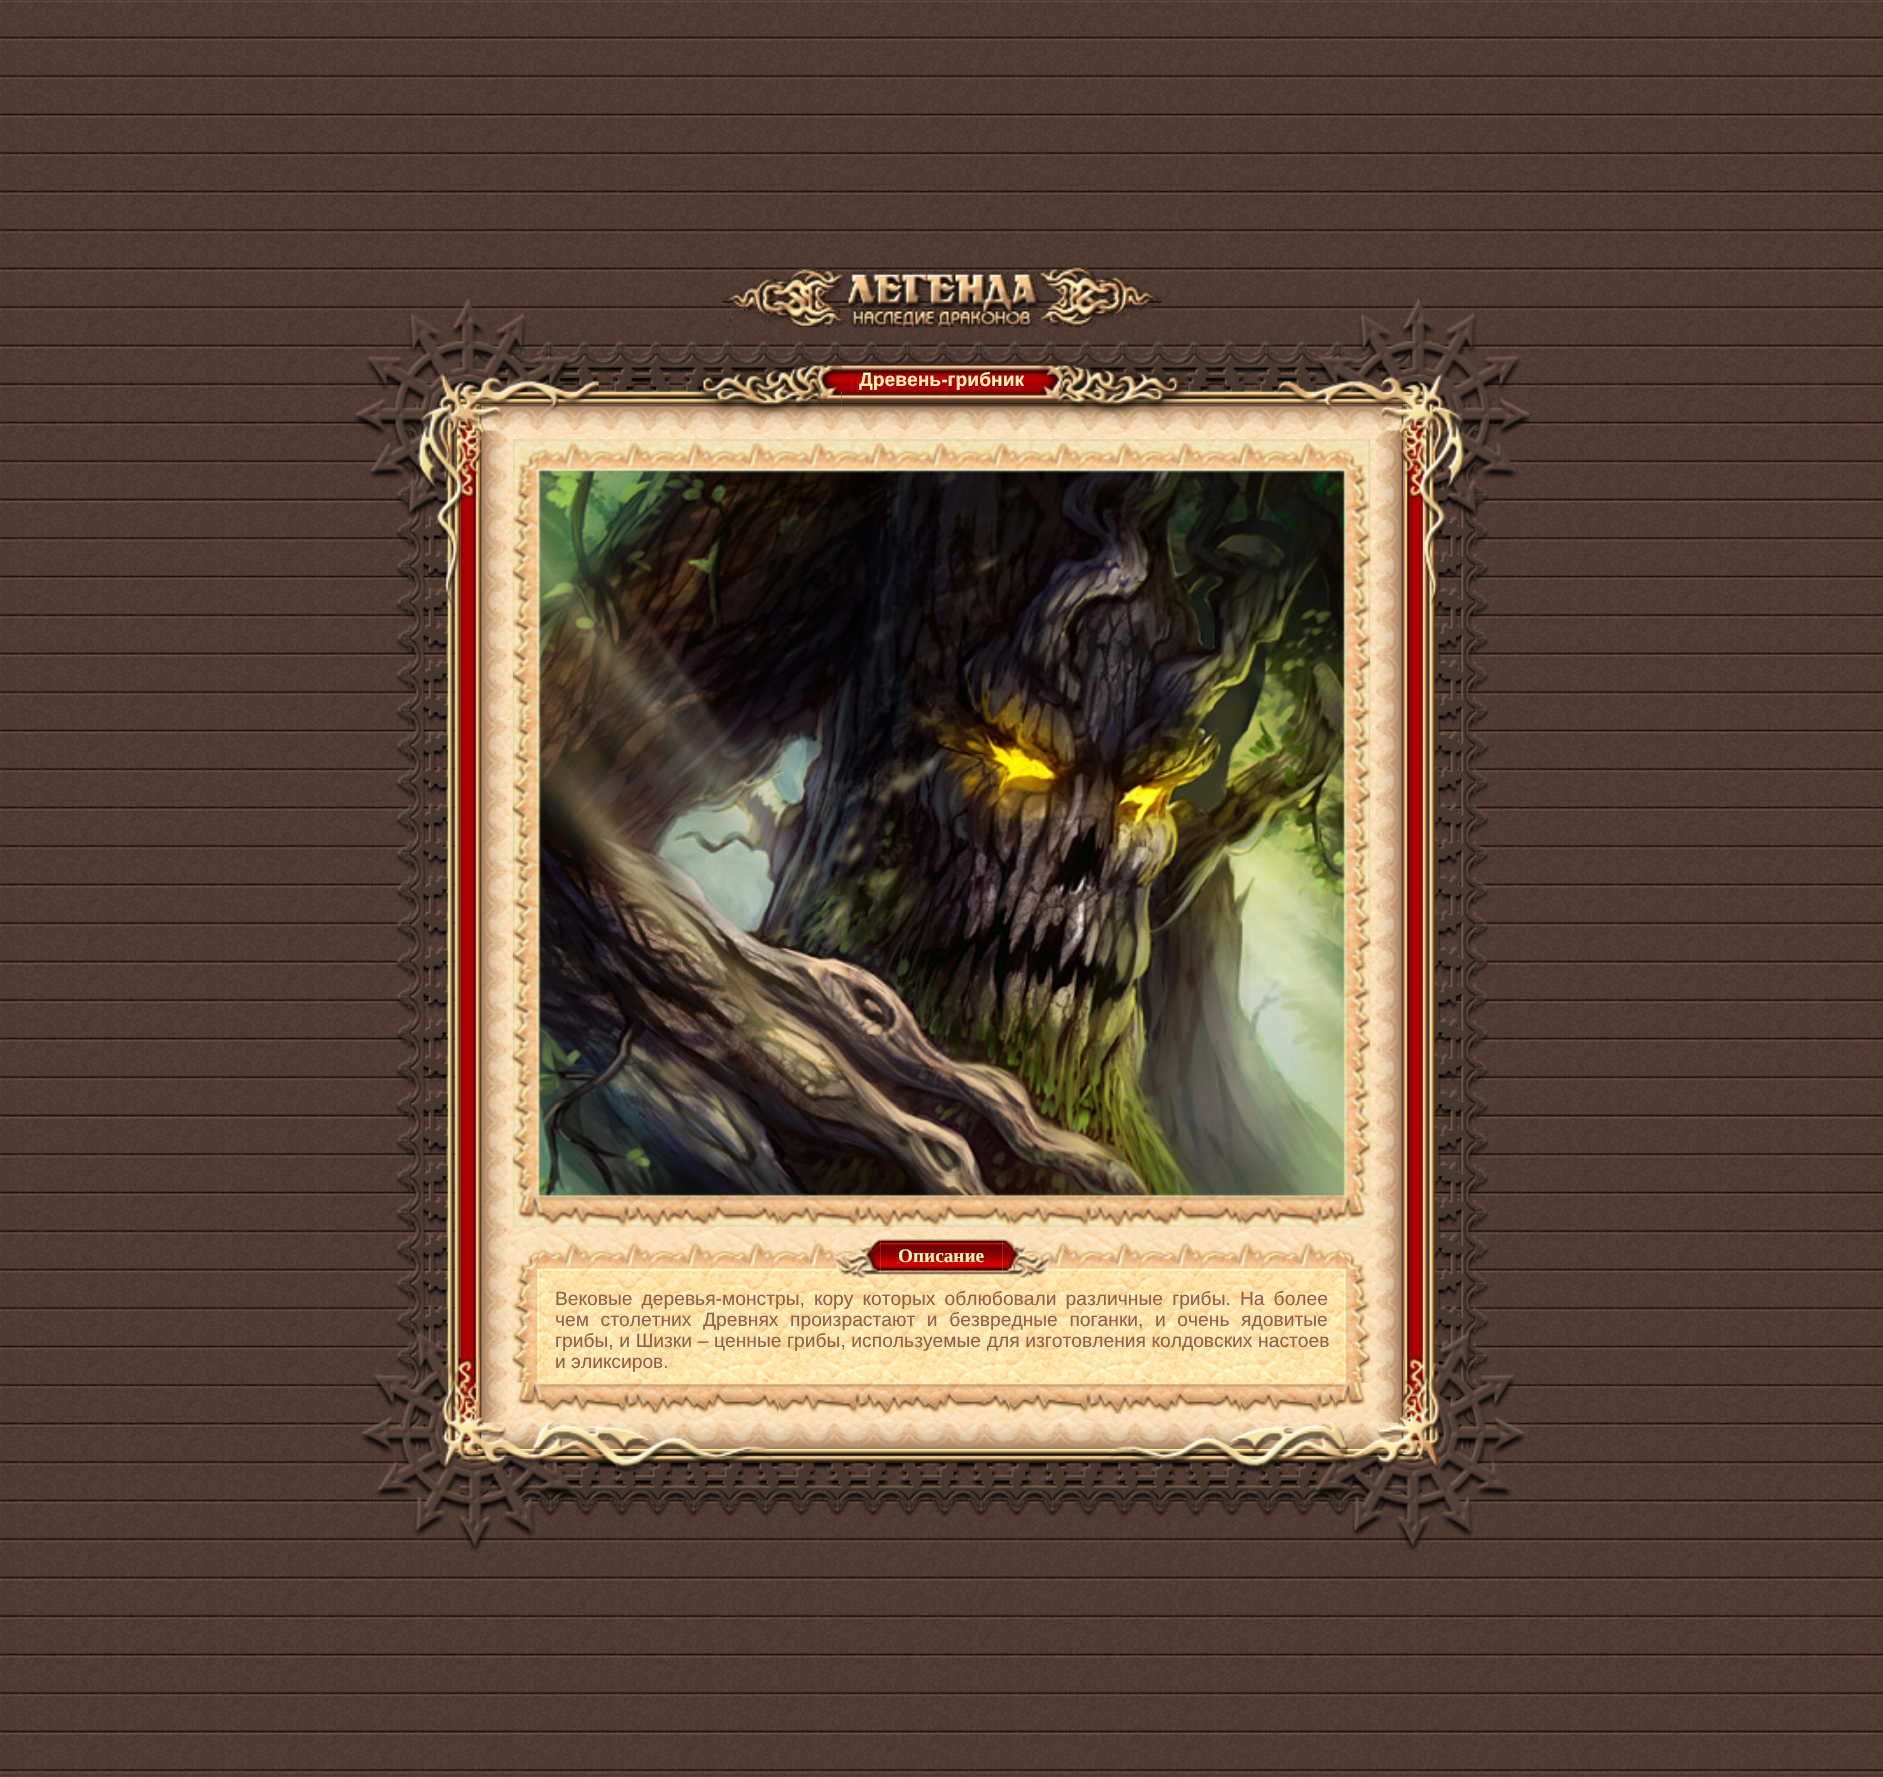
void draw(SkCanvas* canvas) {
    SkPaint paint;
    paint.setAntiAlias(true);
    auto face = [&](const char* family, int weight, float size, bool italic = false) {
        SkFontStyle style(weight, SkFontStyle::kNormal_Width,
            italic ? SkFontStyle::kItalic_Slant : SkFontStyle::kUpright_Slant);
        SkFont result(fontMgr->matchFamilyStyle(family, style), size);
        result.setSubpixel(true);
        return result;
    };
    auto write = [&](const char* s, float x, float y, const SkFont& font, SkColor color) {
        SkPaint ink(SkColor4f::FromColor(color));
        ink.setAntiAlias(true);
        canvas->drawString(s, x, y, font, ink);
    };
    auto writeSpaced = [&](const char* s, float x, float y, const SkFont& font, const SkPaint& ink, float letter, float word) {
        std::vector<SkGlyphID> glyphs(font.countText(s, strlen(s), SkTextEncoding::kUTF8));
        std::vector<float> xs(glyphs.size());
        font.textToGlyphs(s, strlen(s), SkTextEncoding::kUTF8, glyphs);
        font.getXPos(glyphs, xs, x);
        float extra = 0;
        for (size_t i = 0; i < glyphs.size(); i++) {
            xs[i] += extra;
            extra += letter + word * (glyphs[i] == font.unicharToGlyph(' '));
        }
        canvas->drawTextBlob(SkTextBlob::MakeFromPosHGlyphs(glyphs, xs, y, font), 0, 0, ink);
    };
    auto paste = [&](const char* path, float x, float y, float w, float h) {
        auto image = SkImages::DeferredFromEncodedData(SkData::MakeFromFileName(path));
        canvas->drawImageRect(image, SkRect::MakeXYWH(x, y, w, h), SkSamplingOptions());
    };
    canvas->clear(SK_ColorWHITE);
    paste("pic1.png", 0, 0, 1883, 1777);
    paste("pic2.png", 722, 266, 440, 62);
    paste("pic4.png", 460, 341, 963, 64);
    paste("pic8.png", 395, 404, 66, 1045);
    paste("pic9.png", 1422, 404, 67, 1045);
    paste("pic10.png", 460, 404, 963, 1019);
    paste("pic11.png", 460, 404, 48, 1045);
    paste("pic12.png", 1375, 404, 48, 1045);
    paste("pic13.png", 481, 404, 921, 27);
    paste("pic3.png", 354, 299, 245, 307);
    paste("pic5.png", 693, 356, 149, 62);
    paste("pic6.png", 841, 356, 350, 62);
    auto kFont1 = face("Liberation Sans", 700, 19.25f);
    write("Древень-грибник", 859, 386, kFont1, SkColorSetRGB(250, 247, 185));
    paste("pic7.png", 1277, 299, 254, 307);
    paste("pic14.png", 481, 1422, 921, 27);
    paste("pic15.png", 512, 439, 859, 788);
    paste("pic17.png", 547, 1242, 789, 36);
    paste("pic30.png", 460, 1449, 963, 68);
    paste("pic28.png", 361, 1332, 413, 220);
    paste("pic22.png", 512, 1277, 36, 106);
    paste("pic29.png", 1108, 1331, 418, 221);
    paste("pic23.png", 547, 1277, 789, 106);
    paste("pic16.png", 517, 1249, 31, 29);
    paste("pic19.png", 880, 1239, 123, 36);
    paste("pic18.png", 833, 1239, 48, 39);
    auto kFont2 = face("Liberation Serif", 700, 19.25f);
    write("Описание", 898, 1262, kFont2, SkColorSetRGB(250, 247, 185));
    paste("pic20.png", 1002, 1239, 48, 39);
    paste("pic24.png", 1335, 1277, 36, 106);
    paste("pic21.png", 1335, 1249, 31, 29);
    auto kFont3 = face("Liberation Sans", 400, 19.25f);
    paint.setColor(SkColorSetRGB(149, 92, 74));
    writeSpaced("Вековые деревья-монстры, кору которых облюбовали различные грибы. На более", 555, 1305, kFont3, paint, 0, 3.75f);
    writeSpaced("чем столетних Древнях произрастают и безвредные поганки, и очень ядовитые", 555, 1326, kFont3, paint, 0, 6.25f);
    writeSpaced("грибы, и Шизки – ценные грибы, используемые для изготовления колдовских настоев", 555, 1347, kFont3, paint, 0, 0.25f);
    write("и эликсиров.", 555, 1368, kFont3, SkColorSetRGB(149, 92, 74));
    paste("pic26.png", 547, 1382, 789, 32);
    paste("pic25.png", 517, 1382, 31, 29);
    paste("pic27.png", 1335, 1382, 31, 29);
}
